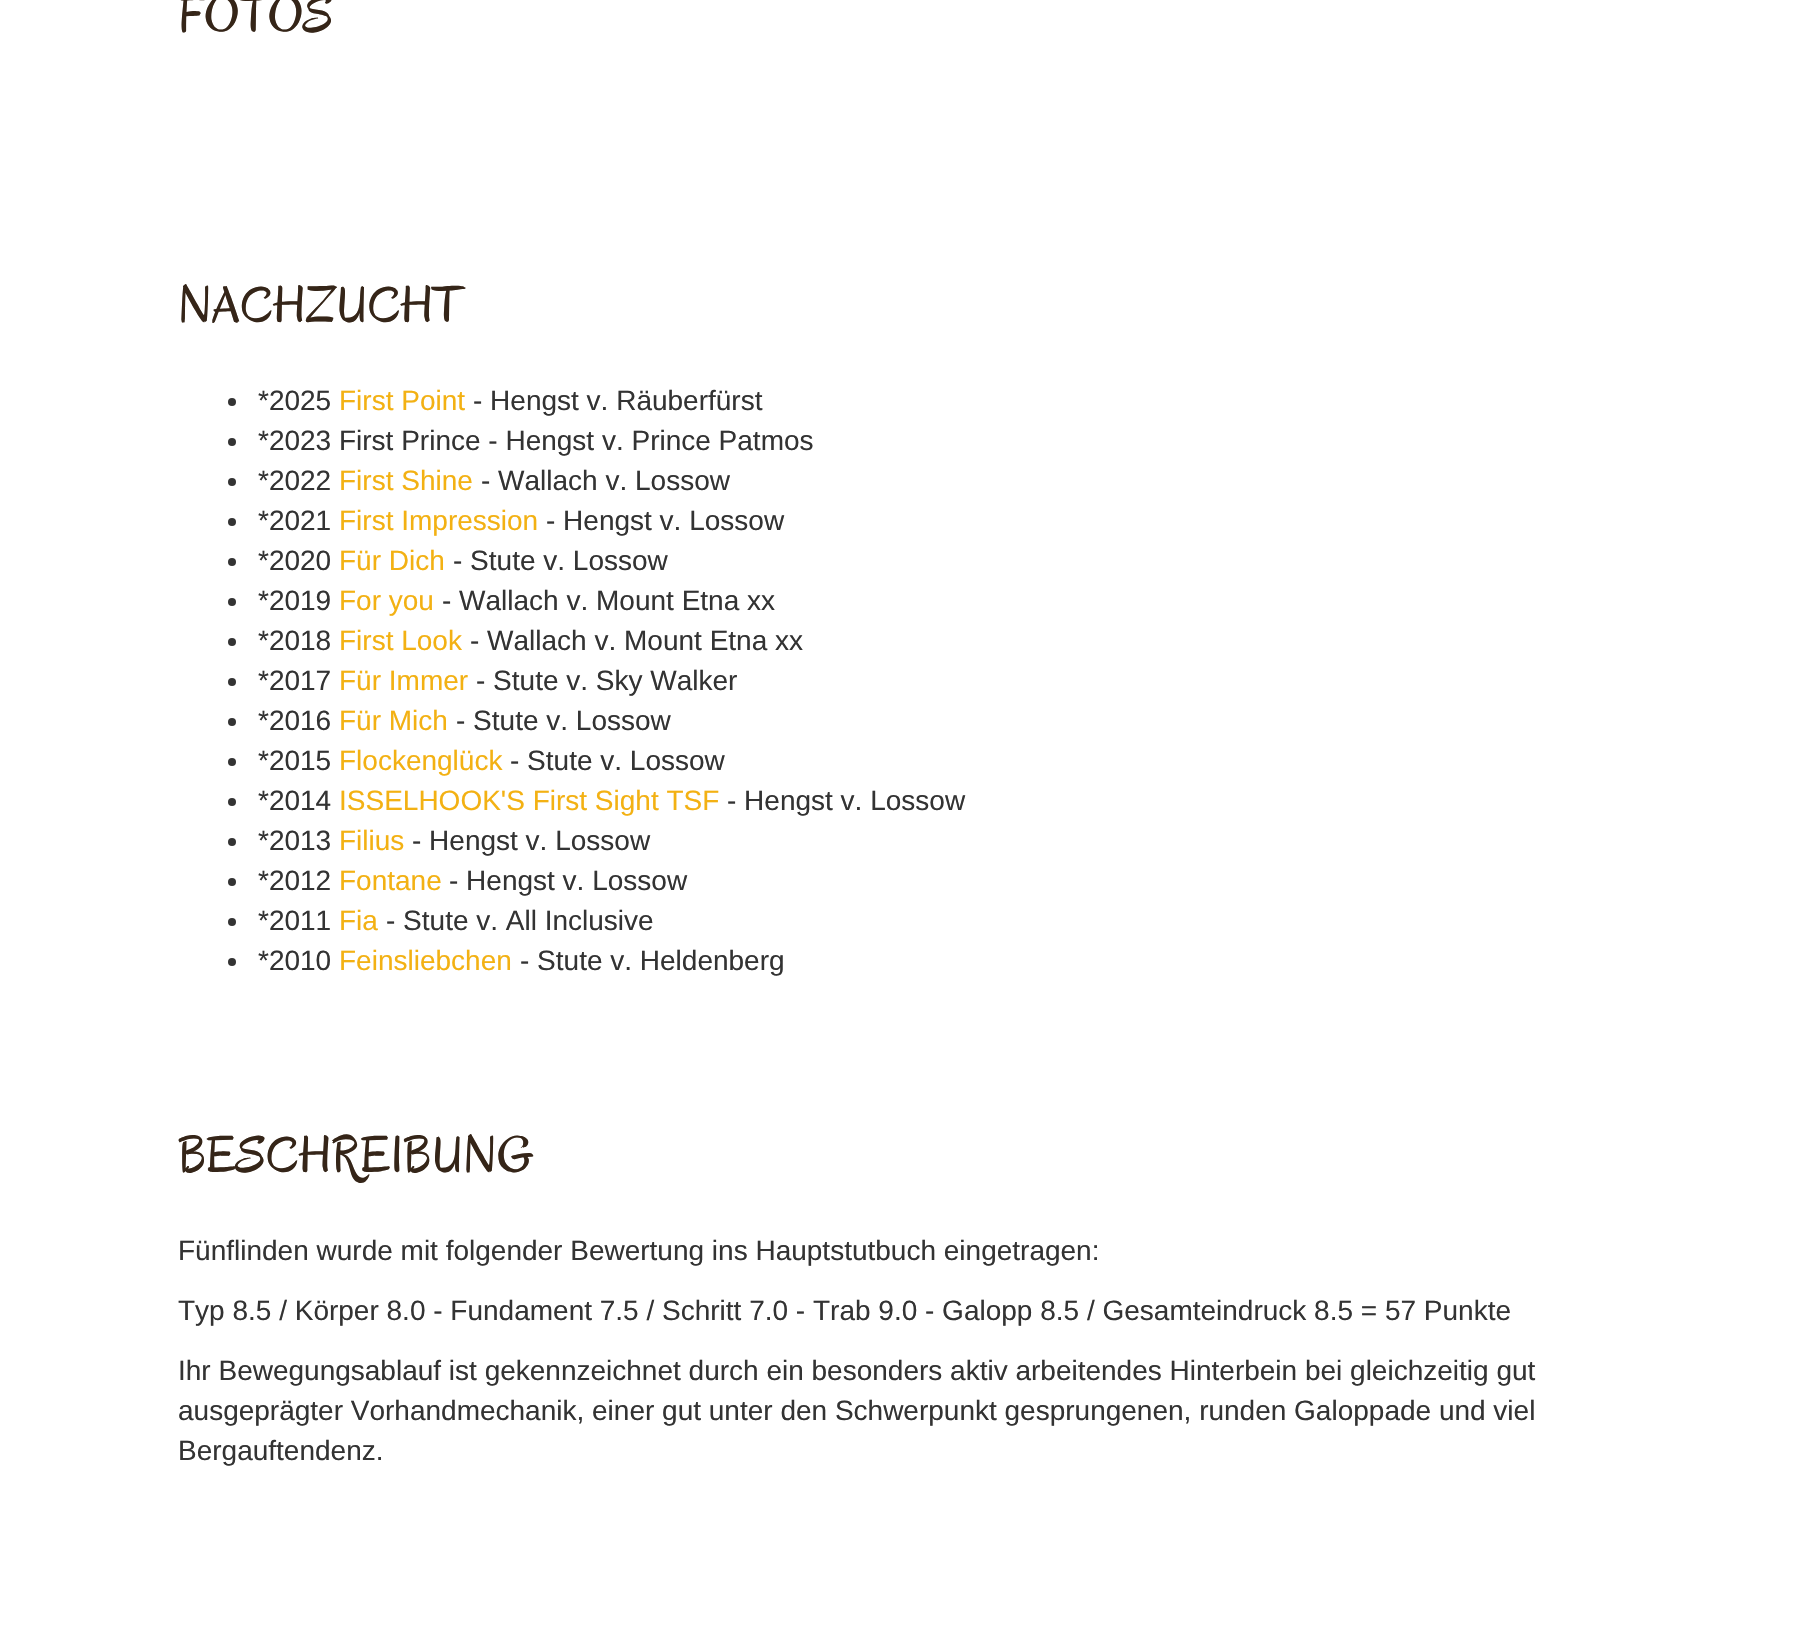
void draw(SkCanvas* canvas) {
    SkPaint paint;
    paint.setAntiAlias(true);
    auto face = [&](const char* family, int weight, float size, bool italic = false) {
        SkFontStyle style(weight, SkFontStyle::kNormal_Width,
            italic ? SkFontStyle::kItalic_Slant : SkFontStyle::kUpright_Slant);
        SkFont result(fontMgr->matchFamilyStyle(family, style), size);
        result.setSubpixel(true);
        return result;
    };
    auto write = [&](const char* s, float x, float y, const SkFont& font, SkColor color) {
        SkPaint ink(SkColor4f::FromColor(color));
        ink.setAntiAlias(true);
        canvas->drawString(s, x, y, font, ink);
    };
    canvas->clear(SK_ColorWHITE);
    auto kFont1 = face("Oregano", 400, 52);
    write("FOTOS", 178, 32, kFont1, SkColorSetRGB(53, 37, 24));
    write("NACHZUCHT", 178, 322, kFont1, SkColorSetRGB(53, 37, 24));
    paint.setColor(SkColorSetRGB(51, 51, 51));
    canvas->drawCircle(232, 402, 4, paint);
    auto kFont2 = face("Liberation Sans", 400, 28);
    write("*2025", 258, 410, kFont2, SkColorSetRGB(51, 51, 51));
    write("First Point", 339, 410, kFont2, SkColorSetRGB(243, 177, 19));
    write("- Hengst v. Räuberfürst", 473, 410, kFont2, SkColorSetRGB(51, 51, 51));
    canvas->drawCircle(232, 442, 4, paint);
    write("*2023 First Prince - Hengst v. Prince Patmos", 258, 450, kFont2, SkColorSetRGB(51, 51, 51));
    canvas->drawCircle(232, 482, 4, paint);
    write("*2022", 258, 490, kFont2, SkColorSetRGB(51, 51, 51));
    write("First Shine", 339, 490, kFont2, SkColorSetRGB(243, 177, 19));
    write("- Wallach v. Lossow", 481, 490, kFont2, SkColorSetRGB(51, 51, 51));
    canvas->drawCircle(232, 522, 4, paint);
    write("*2021", 258, 530, kFont2, SkColorSetRGB(51, 51, 51));
    write("First Impression", 339, 530, kFont2, SkColorSetRGB(243, 177, 19));
    write("- Hengst v. Lossow", 546, 530, kFont2, SkColorSetRGB(51, 51, 51));
    canvas->drawCircle(232, 562, 4, paint);
    write("*2020", 258, 570, kFont2, SkColorSetRGB(51, 51, 51));
    write("Für Dich", 339, 570, kFont2, SkColorSetRGB(243, 177, 19));
    write("- Stute v. Lossow", 453, 570, kFont2, SkColorSetRGB(51, 51, 51));
    canvas->drawCircle(232, 602, 4, paint);
    write("*2019", 258, 610, kFont2, SkColorSetRGB(51, 51, 51));
    write("For you", 339, 610, kFont2, SkColorSetRGB(243, 177, 19));
    write("- Wallach v. Mount Etna xx", 442, 610, kFont2, SkColorSetRGB(51, 51, 51));
    canvas->drawCircle(232, 642, 4, paint);
    write("*2018", 258, 650, kFont2, SkColorSetRGB(51, 51, 51));
    write("First Look", 339, 650, kFont2, SkColorSetRGB(243, 177, 19));
    write("- Wallach v. Mount Etna xx", 470, 650, kFont2, SkColorSetRGB(51, 51, 51));
    canvas->drawCircle(232, 682, 4, paint);
    write("*2017", 258, 690, kFont2, SkColorSetRGB(51, 51, 51));
    write("Für Immer", 339, 690, kFont2, SkColorSetRGB(243, 177, 19));
    write("- Stute v. Sky Walker", 476, 690, kFont2, SkColorSetRGB(51, 51, 51));
    canvas->drawCircle(232, 722, 4, paint);
    write("*2016", 258, 730, kFont2, SkColorSetRGB(51, 51, 51));
    write("Für Mich", 339, 730, kFont2, SkColorSetRGB(243, 177, 19));
    write("- Stute v. Lossow", 456, 730, kFont2, SkColorSetRGB(51, 51, 51));
    canvas->drawCircle(232, 762, 4, paint);
    write("*2015", 258, 770, kFont2, SkColorSetRGB(51, 51, 51));
    write("Flockenglück", 339, 770, kFont2, SkColorSetRGB(243, 177, 19));
    write("- Stute v. Lossow", 510, 770, kFont2, SkColorSetRGB(51, 51, 51));
    canvas->drawCircle(232, 802, 4, paint);
    write("*2014", 258, 810, kFont2, SkColorSetRGB(51, 51, 51));
    write("ISSELHOOK'S First Sight TSF", 339, 810, kFont2, SkColorSetRGB(243, 177, 19));
    write("- Hengst v. Lossow", 727, 810, kFont2, SkColorSetRGB(51, 51, 51));
    canvas->drawCircle(232, 842, 4, paint);
    write("*2013", 258, 850, kFont2, SkColorSetRGB(51, 51, 51));
    write("Filius", 339, 850, kFont2, SkColorSetRGB(243, 177, 19));
    write("- Hengst v. Lossow", 412, 850, kFont2, SkColorSetRGB(51, 51, 51));
    canvas->drawCircle(232, 882, 4, paint);
    write("*2012", 258, 890, kFont2, SkColorSetRGB(51, 51, 51));
    write("Fontane", 339, 890, kFont2, SkColorSetRGB(243, 177, 19));
    write("- Hengst v. Lossow", 449, 890, kFont2, SkColorSetRGB(51, 51, 51));
    canvas->drawCircle(232, 922, 4, paint);
    write("*2011", 258, 930, kFont2, SkColorSetRGB(51, 51, 51));
    write("Fia", 339, 930, kFont2, SkColorSetRGB(243, 177, 19));
    write("- Stute v. All Inclusive", 386, 930, kFont2, SkColorSetRGB(51, 51, 51));
    canvas->drawCircle(232, 962, 4, paint);
    write("*2010", 258, 970, kFont2, SkColorSetRGB(51, 51, 51));
    write("Feinsliebchen", 339, 970, kFont2, SkColorSetRGB(243, 177, 19));
    write("- Stute v. Heldenberg", 520, 970, kFont2, SkColorSetRGB(51, 51, 51));
    write("BESCHREIBUNG", 178, 1172, kFont1, SkColorSetRGB(53, 37, 24));
    write("Fünflinden wurde mit folgender Bewertung ins Hauptstutbuch eingetragen:", 178, 1260, kFont2, SkColorSetRGB(51, 51, 51));
    write("Typ 8.5 / Körper 8.0 - Fundament 7.5 / Schritt 7.0 - Trab 9.0 - Galopp 8.5 / Gesamteindruck 8.5 = 57 Punkte", 178, 1320, kFont2, SkColorSetRGB(51, 51, 51));
    write("Ihr Bewegungsablauf ist gekennzeichnet durch ein besonders aktiv arbeitendes Hinterbein bei gleichzeitig gut", 178, 1380, kFont2, SkColorSetRGB(51, 51, 51));
    write("ausgeprägter Vorhandmechanik, einer gut unter den Schwerpunkt gesprungenen, runden Galoppade und viel", 178, 1420, kFont2, SkColorSetRGB(51, 51, 51));
    write("Bergauftendenz.", 178, 1460, kFont2, SkColorSetRGB(51, 51, 51));
}
